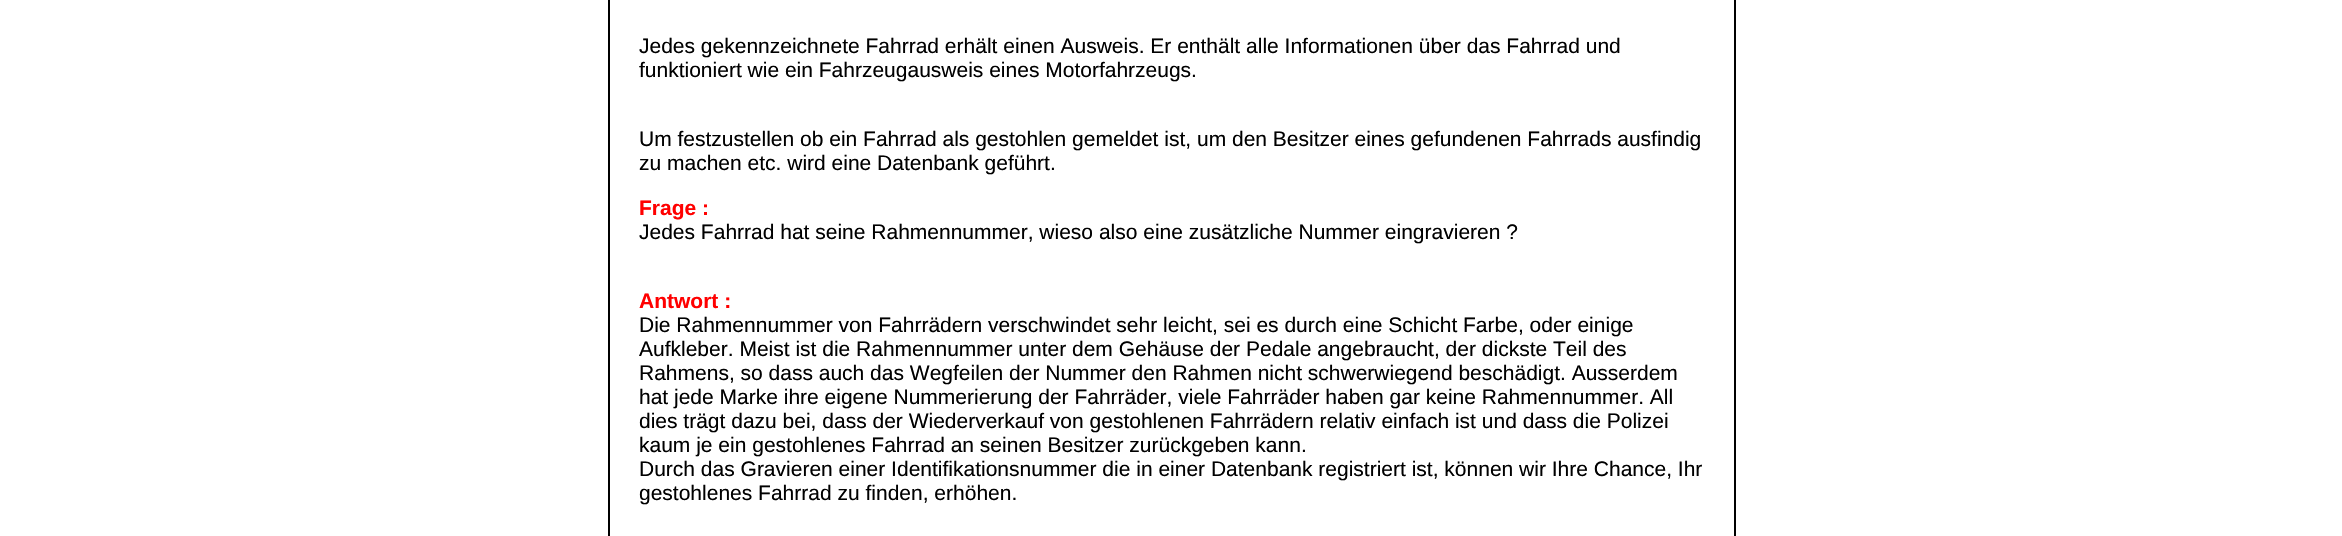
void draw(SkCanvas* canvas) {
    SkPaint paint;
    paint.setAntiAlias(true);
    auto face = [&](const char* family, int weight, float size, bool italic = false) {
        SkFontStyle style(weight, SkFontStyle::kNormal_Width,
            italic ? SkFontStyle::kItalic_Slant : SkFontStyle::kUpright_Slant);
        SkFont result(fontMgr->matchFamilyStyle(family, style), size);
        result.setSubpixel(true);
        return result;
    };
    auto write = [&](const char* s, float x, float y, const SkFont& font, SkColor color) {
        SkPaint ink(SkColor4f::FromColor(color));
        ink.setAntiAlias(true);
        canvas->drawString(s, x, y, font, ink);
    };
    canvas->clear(SK_ColorWHITE);
    paint.setStyle(SkPaint::kStroke_Style);
    paint.setStrokeWidth(2);
    paint.setColor(SK_ColorBLACK);
    canvas->drawRect(SkRect::MakeXYWH(609, -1, 1126, 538), paint);
    auto kFont1 = face("Liberation Sans", 400, 21);
    write("Jedes gekennzeichnete Fahrrad erhält einen Ausweis. Er enthält alle Informationen über das Fahrrad und", 639, 53, kFont1, SK_ColorBLACK);
    write("funktioniert wie ein Fahrzeugausweis eines Motorfahrzeugs.", 639, 77, kFont1, SK_ColorBLACK);
    write("Um festzustellen ob ein Fahrrad als gestohlen gemeldet ist, um den Besitzer eines gefundenen Fahrrads ausfindig", 639, 146, kFont1, SK_ColorBLACK);
    write("zu machen etc. wird eine Datenbank geführt.", 639, 170, kFont1, SK_ColorBLACK);
    auto kFont2 = face("Liberation Sans", 700, 21);
    write("Frage :", 639, 215, kFont2, SkColorSetRGB(255, 0, 0));
    write("Jedes Fahrrad hat seine Rahmennummer, wieso also eine zusätzliche Nummer eingravieren ?", 639, 239, kFont1, SK_ColorBLACK);
    write("Antwort :", 639, 308, kFont2, SkColorSetRGB(255, 0, 0));
    write("Die Rahmennummer von Fahrrädern verschwindet sehr leicht, sei es durch eine Schicht Farbe, oder einige", 639, 332, kFont1, SK_ColorBLACK);
    write("Aufkleber. Meist ist die Rahmennummer unter dem Gehäuse der Pedale angebraucht, der dickste Teil des", 639, 356, kFont1, SK_ColorBLACK);
    write("Rahmens, so dass auch das Wegfeilen der Nummer den Rahmen nicht schwerwiegend beschädigt. Ausserdem", 639, 380, kFont1, SK_ColorBLACK);
    write("hat jede Marke ihre eigene Nummerierung der Fahrräder, viele Fahrräder haben gar keine Rahmennummer. All", 639, 404, kFont1, SK_ColorBLACK);
    write("dies trägt dazu bei, dass der Wiederverkauf von gestohlenen Fahrrädern relativ einfach ist und dass die Polizei", 639, 428, kFont1, SK_ColorBLACK);
    write("kaum je ein gestohlenes Fahrrad an seinen Besitzer zurückgeben kann.", 639, 452, kFont1, SK_ColorBLACK);
    write("Durch das Gravieren einer Identifikationsnummer die in einer Datenbank registriert ist, können wir Ihre Chance, Ihr", 639, 476, kFont1, SK_ColorBLACK);
    write("gestohlenes Fahrrad zu finden, erhöhen.", 639, 500, kFont1, SK_ColorBLACK);
}
